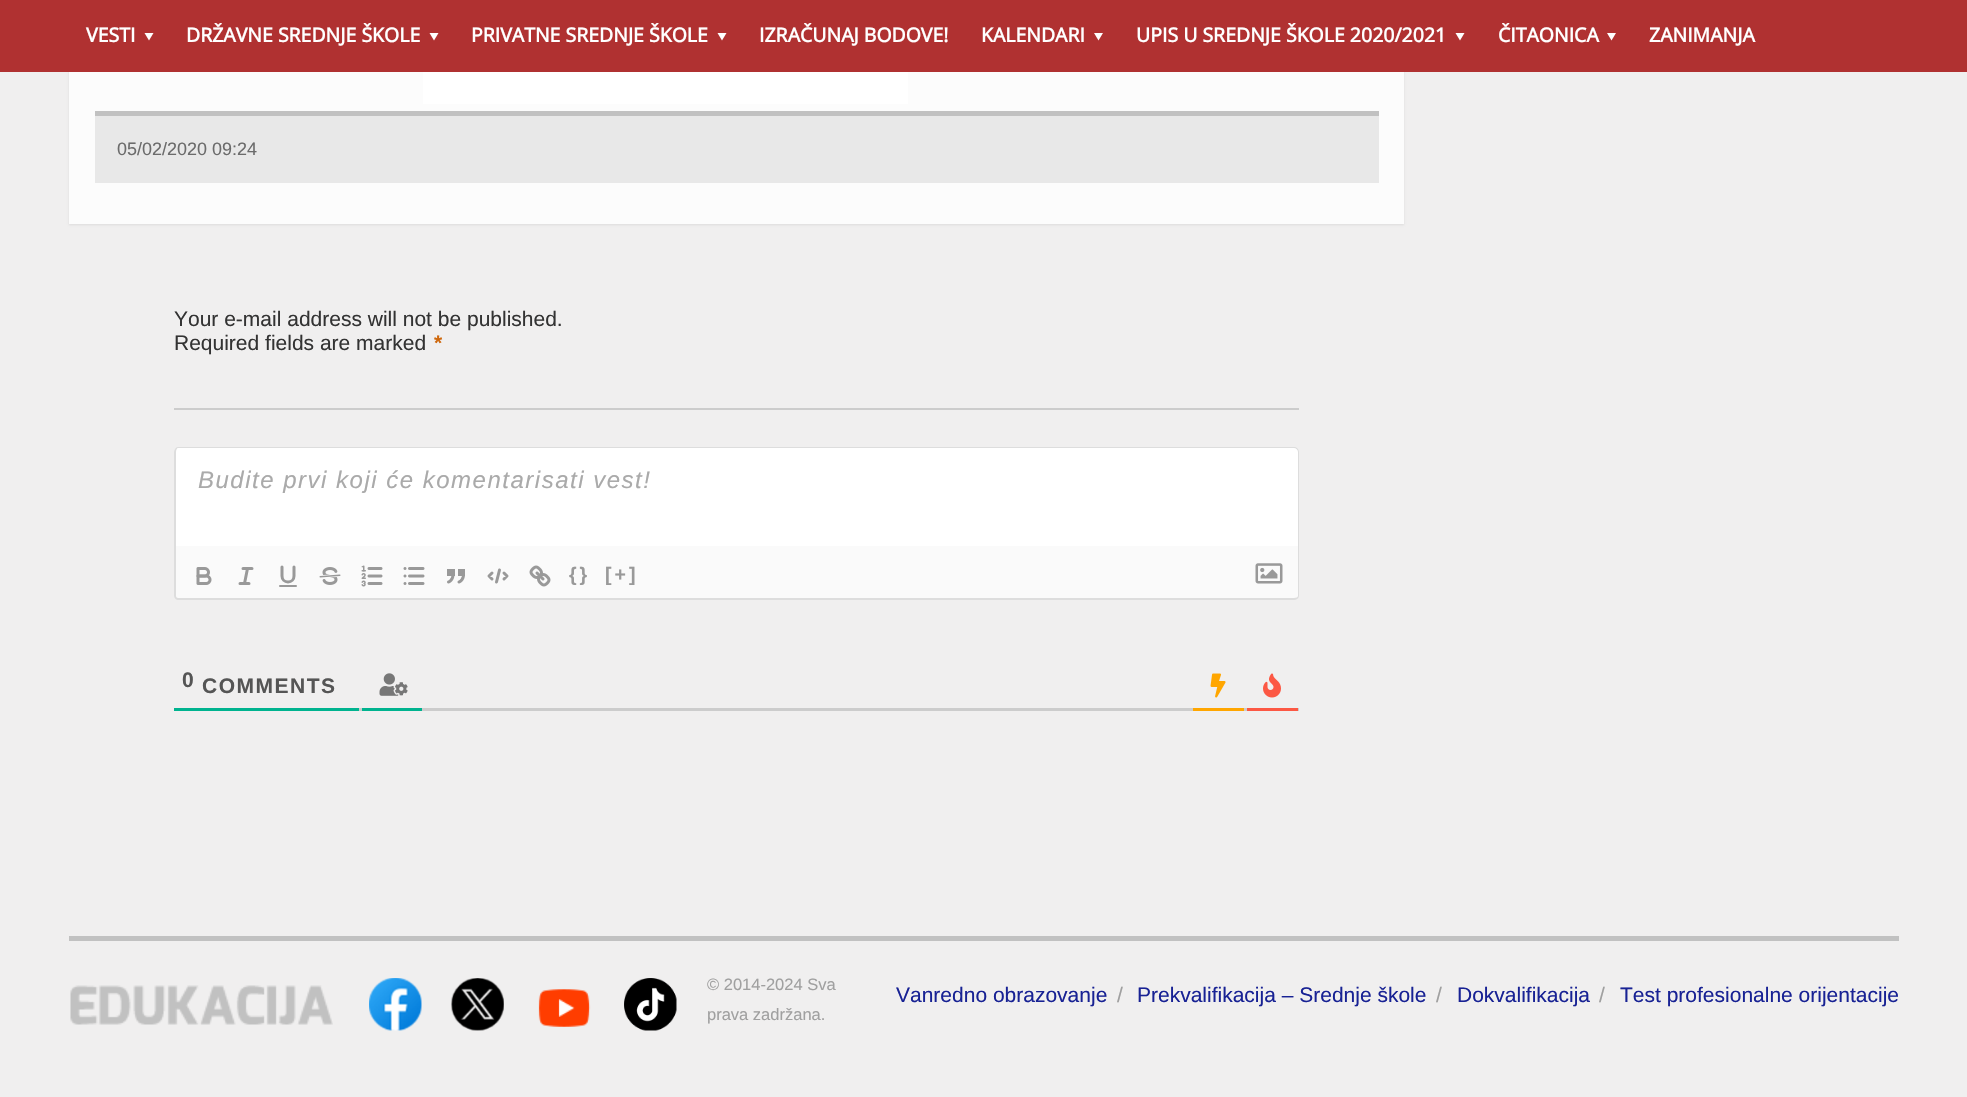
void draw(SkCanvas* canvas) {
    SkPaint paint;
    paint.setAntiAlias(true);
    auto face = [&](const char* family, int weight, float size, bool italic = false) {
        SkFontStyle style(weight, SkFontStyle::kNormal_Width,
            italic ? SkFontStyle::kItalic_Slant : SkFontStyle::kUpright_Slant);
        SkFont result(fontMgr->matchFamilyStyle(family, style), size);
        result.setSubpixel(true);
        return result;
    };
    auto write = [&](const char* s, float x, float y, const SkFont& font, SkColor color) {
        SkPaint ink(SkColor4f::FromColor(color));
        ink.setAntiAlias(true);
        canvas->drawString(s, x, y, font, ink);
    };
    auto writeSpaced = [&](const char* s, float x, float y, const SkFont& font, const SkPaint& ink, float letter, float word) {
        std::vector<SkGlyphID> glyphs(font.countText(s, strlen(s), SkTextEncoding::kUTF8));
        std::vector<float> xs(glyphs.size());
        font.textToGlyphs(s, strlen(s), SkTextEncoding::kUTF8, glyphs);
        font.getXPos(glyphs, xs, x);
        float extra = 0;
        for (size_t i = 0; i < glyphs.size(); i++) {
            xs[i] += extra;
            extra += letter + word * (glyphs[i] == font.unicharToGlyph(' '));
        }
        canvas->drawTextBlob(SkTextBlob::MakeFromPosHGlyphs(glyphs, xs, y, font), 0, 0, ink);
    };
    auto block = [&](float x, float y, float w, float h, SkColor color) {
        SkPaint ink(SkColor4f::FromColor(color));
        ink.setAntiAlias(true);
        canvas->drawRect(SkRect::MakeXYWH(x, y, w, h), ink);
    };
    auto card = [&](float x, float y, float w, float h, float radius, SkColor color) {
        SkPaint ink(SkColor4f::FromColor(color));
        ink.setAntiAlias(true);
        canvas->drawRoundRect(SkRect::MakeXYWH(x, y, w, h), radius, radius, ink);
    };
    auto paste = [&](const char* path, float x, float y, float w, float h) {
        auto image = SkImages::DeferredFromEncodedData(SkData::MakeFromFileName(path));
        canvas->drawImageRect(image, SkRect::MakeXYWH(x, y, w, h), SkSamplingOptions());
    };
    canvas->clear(SkColorSetRGB(240, 239, 239));
    paint.setColor(SkColorSetARGB(20, 0, 0, 0));
    paint.setMaskFilter(SkMaskFilter::MakeBlur(kNormal_SkBlurStyle, 1));
    canvas->drawRect(SkRect::MakeXYWH(69, -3, 1335, 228), paint);
    paint.setMaskFilter(nullptr);
    block(0, 0, 1967, 72, SkColorSetRGB(176, 49, 49));
    auto kFont1 = face("Open Sans", 700, 19.5f);
    write("VESTI", 86, 42, kFont1, SK_ColorWHITE);
    paint.setColor(SK_ColorWHITE);
    canvas->drawPath(SkPathBuilder().moveTo(153.5f, 33).lineTo(149, 40.5f).lineTo(144.5f, 33).close().detach(), paint);
    write("DRŽAVNE SREDNJE ŠKOLE", 186, 42, kFont1, SK_ColorWHITE);
    canvas->drawPath(SkPathBuilder().moveTo(438.5f, 33).lineTo(434, 40.5f).lineTo(429.5f, 33).close().detach(), paint);
    write("PRIVATNE SREDNJE ŠKOLE", 471, 42, kFont1, SK_ColorWHITE);
    canvas->drawPath(SkPathBuilder().moveTo(726.5f, 33).lineTo(722, 40.5f).lineTo(717.5f, 33).close().detach(), paint);
    write("IZRAČUNAJ BODOVE!", 759, 42, kFont1, SK_ColorWHITE);
    write("KALENDARI", 981, 42, kFont1, SK_ColorWHITE);
    canvas->drawPath(SkPathBuilder().moveTo(1103, 33).lineTo(1098.5f, 40.5f).lineTo(1094, 33).close().detach(), paint);
    write("UPIS U SREDNJE ŠKOLE 2020/2021", 1136, 42, kFont1, SK_ColorWHITE);
    canvas->drawPath(SkPathBuilder().moveTo(1464.5f, 33).lineTo(1460, 40.5f).lineTo(1455.5f, 33).close().detach(), paint);
    write("ČITAONICA", 1498, 42, kFont1, SK_ColorWHITE);
    canvas->drawPath(SkPathBuilder().moveTo(1616, 33).lineTo(1611.5f, 40.5f).lineTo(1607, 33).close().detach(), paint);
    write("ZANIMANJA", 1649, 42, kFont1, SK_ColorWHITE);
    block(69, 72, 1335, 152, SkColorSetRGB(252, 252, 252));
    block(423, 72, 485, 32, SK_ColorWHITE);
    block(95, 116, 1284, 67, SkColorSetRGB(232, 232, 232));
    block(95, 111, 1284, 5, SkColorSetRGB(193, 193, 193));
    auto kFont2 = face("Liberation Sans", 400, 18);
    write("05/02/2020 09:24", 117, 155, kFont2, SkColorSetRGB(107, 107, 107));
    auto kFont3 = face("Liberation Sans", 400, 21);
    write("Your e-mail address will not be published.", 174, 326, kFont3, SkColorSetRGB(51, 51, 51));
    write("Required fields are marked", 174, 350, kFont3, SkColorSetRGB(51, 51, 51));
    auto kFont4 = face("Liberation Sans", 700, 21);
    write("*", 434, 350, kFont4, SkColorSetRGB(207, 104, 13));
    block(174, 408, 1125, 2, SkColorSetRGB(204, 204, 204));
    canvas->drawPath(SkPathBuilder().moveTo(179, 447).lineTo(1294, 447).cubicTo(1297, 447, 1299, 449, 1299, 452).lineTo(1299, 546).lineTo(174, 546).lineTo(174, 452).cubicTo(174, 449, 176, 447, 179, 447).close().detach(), paint);
    paint.setColor(SkColorSetRGB(221, 221, 221));
    canvas->drawPath(SkPathBuilder(SkPathFillType::kEvenOdd).moveTo(178, 447).lineTo(1294, 447).cubicTo(1297, 447, 1299, 449, 1299, 452).lineTo(1299, 546).lineTo(174, 546).lineTo(174, 452).cubicTo(174, 449, 176, 447, 178, 447).close().moveTo(178, 448).lineTo(1294, 448).cubicTo(1296, 448, 1298, 450, 1298, 452).lineTo(1298, 546).lineTo(176, 546).lineTo(176, 452).cubicTo(176, 450, 177, 448, 178, 448).close().detach(), paint);
    auto kFont5 = face("Liberation Sans", 400, 24, true);
    paint.setColor(SkColorSetRGB(170, 170, 170));
    writeSpaced("Budite prvi koji će komentarisati vest!", 198, 488, kFont5, paint, 1.5f, 0);
    paint.setColor(SkColorSetRGB(250, 250, 250));
    canvas->drawPath(SkPathBuilder().moveTo(174, 546).lineTo(1299, 546).lineTo(1299, 595).cubicTo(1299, 598, 1297, 600, 1294, 600).lineTo(179, 600).cubicTo(176, 600, 174, 598, 174, 595).close().detach(), paint);
    paint.setColor(SkColorSetRGB(221, 221, 221));
    canvas->drawPath(SkPathBuilder(SkPathFillType::kEvenOdd).moveTo(174, 546).lineTo(1299, 546).lineTo(1299, 596).cubicTo(1299, 598, 1297, 600, 1294, 600).lineTo(178, 600).cubicTo(176, 600, 174, 598, 174, 596).close().moveTo(176, 546).lineTo(1298, 546).lineTo(1298, 596).cubicTo(1298, 597, 1296, 598, 1294, 598).lineTo(178, 598).cubicTo(177, 598, 176, 597, 176, 596).close().detach(), paint);
    paste("pic1.png", 196, 567, 16, 18);
    paint.setStyle(SkPaint::kStroke_Style);
    paint.setStrokeWidth(3);
    paint.setStrokeCap(SkPaint::kRound_Cap);
    paint.setStrokeJoin(SkPaint::kRound_Join);
    paint.setColor(SkColorSetRGB(153, 153, 153));
    canvas->drawPath(SkPathBuilder().moveTo(243, 568.5f).lineTo(252, 568.5f).moveTo(240, 583.5f).lineTo(249, 583.5f).moveTo(244.5f, 583.5f).lineTo(247.5f, 568.5f).moveTo(282, 567).lineTo(282, 576).cubicTo(282, 579.5f, 284.5f, 582, 288, 582).cubicTo(291.5f, 582, 294, 579.5f, 294, 576).lineTo(294, 567).detach(), paint);
    paste("pic2.png", 319, 567, 22, 18);
    paste("pic3.png", 361, 565, 22, 22);
    paste("pic4.png", 403, 567, 22, 18);
    paste("pic5.png", 447, 569, 18, 15);
    canvas->drawPath(SkPathBuilder().moveTo(492, 573).lineTo(489, 576).lineTo(492, 579).moveTo(504, 573).lineTo(507, 576).lineTo(504, 579).moveTo(499.5f, 570).lineTo(496.5f, 582).detach(), paint);
    paste("pic6.png", 529, 565, 22, 22);
    auto kFont6 = face("Liberation Sans", 700, 19.5f);
    paint.setStyle(SkPaint::kFill_Style);
    writeSpaced("{}", 569, 581, kFont6, paint, 3, 0);
    writeSpaced("[+]", 605, 581, kFont6, paint, 3, 0);
    paste("pic7.png", 1255, 563, 28, 21);
    card(279, 585, 18, 2, 1, SkColorSetRGB(153, 153, 153));
    block(359, 708, 940, 3, SkColorSetRGB(204, 204, 204));
    block(174, 708, 185, 3, SkColorSetRGB(0, 179, 143));
    paint.setColor(SkColorSetRGB(85, 85, 85));
    writeSpaced("0", 182, 687, kFont4, paint, 1.5f, 0);
    writeSpaced("COMMENTS", 202, 693, kFont4, paint, 1.5f, 0);
    block(362, 708, 60, 3, SkColorSetRGB(0, 179, 143));
    paste("pic8.png", 379, 673, 29, 23);
    block(1193, 708, 51, 3, SkColorSetRGB(255, 166, 0));
    paste("pic9.png", 1210, 673, 16, 25);
    block(1247, 708, 51, 3, SkColorSetRGB(252, 88, 68));
    paste("pic10.png", 1263, 673, 18, 25);
    block(69, 936, 1830, 5, SkColorSetRGB(193, 193, 193));
    paste("pic11.png", 70, 985, 263, 40);
    paste("pic12.png", 369, 978, 53, 53);
    paste("pic13.png", 451, 978, 53, 53);
    paste("pic14.png", 624, 978, 53, 53);
    auto kFont7 = face("Liberation Sans", 400, 16.5f);
    write("© 2014-2024 Sva", 707, 990, kFont7, SkColorSetRGB(160, 160, 160));
    paste("pic15.png", 538, 989, 53, 38);
    write("prava zadržana.", 707, 1020, kFont7, SkColorSetRGB(160, 160, 160));
    write("Vanredno obrazovanje", 896, 1002, kFont3, SkColorSetRGB(24, 34, 148));
    write("/", 1117, 1002, kFont3, SkColorSetRGB(160, 160, 160));
    write("Prekvalifikacija – Srednje škole", 1137, 1002, kFont3, SkColorSetRGB(24, 34, 148));
    write("/", 1436, 1002, kFont3, SkColorSetRGB(160, 160, 160));
    write("Dokvalifikacija", 1457, 1002, kFont3, SkColorSetRGB(24, 34, 148));
    write("/", 1599, 1002, kFont3, SkColorSetRGB(160, 160, 160));
    write("Test profesionalne orijentacije", 1620, 1002, kFont3, SkColorSetRGB(24, 34, 148));
}
